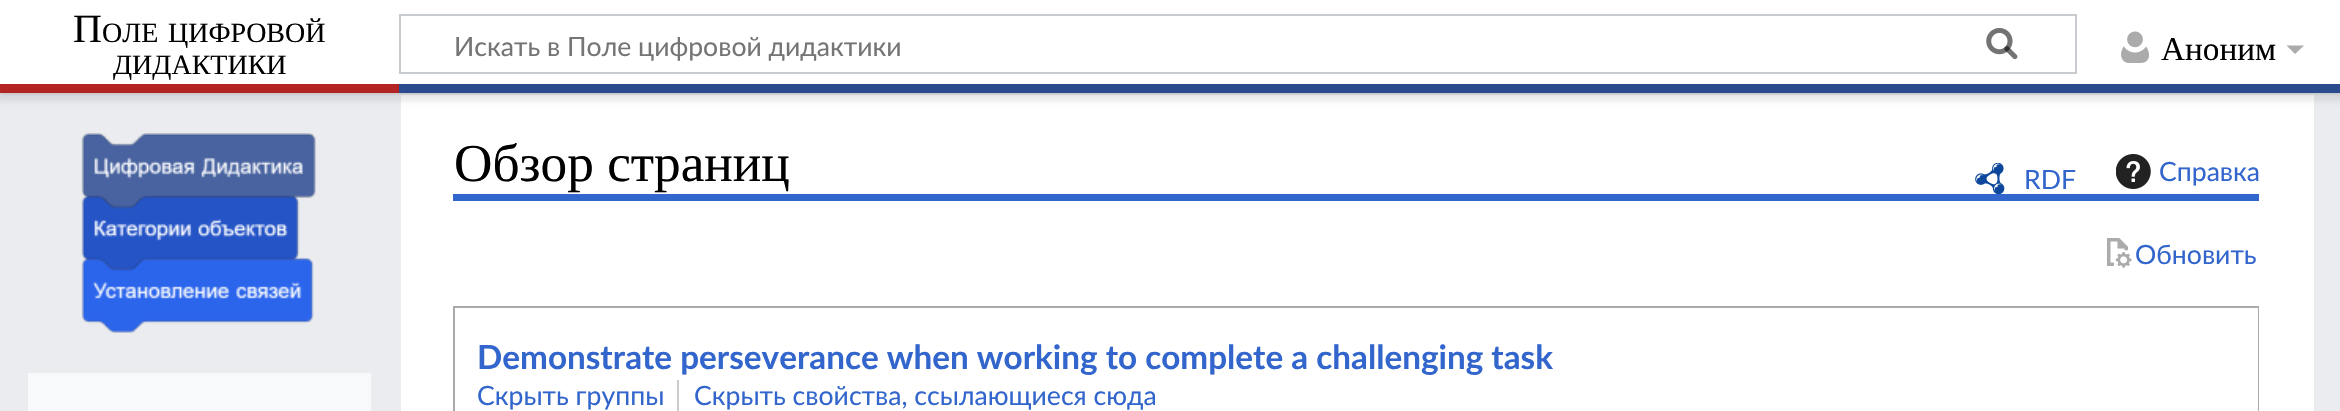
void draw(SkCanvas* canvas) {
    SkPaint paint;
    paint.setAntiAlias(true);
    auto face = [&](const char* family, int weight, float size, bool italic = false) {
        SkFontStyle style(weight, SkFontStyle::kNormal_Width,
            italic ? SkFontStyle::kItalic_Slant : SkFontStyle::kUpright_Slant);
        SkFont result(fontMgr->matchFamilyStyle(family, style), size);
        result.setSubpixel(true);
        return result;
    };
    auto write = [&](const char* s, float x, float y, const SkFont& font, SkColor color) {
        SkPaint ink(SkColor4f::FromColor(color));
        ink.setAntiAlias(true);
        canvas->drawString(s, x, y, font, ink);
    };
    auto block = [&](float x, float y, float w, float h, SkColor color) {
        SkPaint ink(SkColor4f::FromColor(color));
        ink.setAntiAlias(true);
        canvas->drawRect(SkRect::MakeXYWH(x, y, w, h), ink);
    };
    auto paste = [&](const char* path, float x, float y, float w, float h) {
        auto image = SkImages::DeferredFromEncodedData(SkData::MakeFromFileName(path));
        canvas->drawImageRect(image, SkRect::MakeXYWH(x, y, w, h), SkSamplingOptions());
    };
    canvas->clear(SkColorSetRGB(234, 236, 240));
    block(401, 95, 1913, 316, SK_ColorWHITE);
    paint.setColor(SkColorSetARGB(51, 0, 0, 0));
    paint.setMaskFilter(SkMaskFilter::MakeBlur(kNormal_SkBlurStyle, 2));
    canvas->drawRect(SkRect::MakeXYWH(0, 84, 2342, 9), paint);
    paint.setMaskFilter(nullptr);
    paint.setColor(SkColorSetARGB(18, 0, 0, 0));
    paint.setMaskFilter(SkMaskFilter::MakeBlur(kNormal_SkBlurStyle, 2.5f));
    canvas->drawRect(SkRect::MakeXYWH(-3, 86, 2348, 16), paint);
    paint.setMaskFilter(nullptr);
    block(0, 0, 2340, 84, SK_ColorWHITE);
    auto kFont1 = face("Liberation Serif", 400, 40);
    write("П", 73, 42, kFont1, SK_ColorBLACK);
    auto kFont2 = face("Liberation Serif", 400, 28);
    write("ОЛЕ", 102, 42, kFont2, SK_ColorBLACK);
    write("ЦИФРОВОЙ", 168, 42, kFont2, SK_ColorBLACK);
    write("ДИДАКТИКИ", 113, 74, kFont2, SK_ColorBLACK);
    paint.setStyle(SkPaint::kStroke_Style);
    paint.setStrokeWidth(2);
    paint.setColor(SkColorSetRGB(200, 204, 209));
    canvas->drawRect(SkRect::MakeXYWH(400, 15, 1676, 58), paint);
    paste("pic1.png", 1986, 28, 32, 32);
    auto kFont3 = face("Lato", 400, 26.6f);
    write("Искать в Поле цифровой дидактики", 454, 56, kFont3, SkColorSetRGB(117, 117, 117));
    paste("pic2.png", 1986, 28, 32, 32);
    paste("pic3.png", 2121, 31, 28, 32);
    auto kFont4 = face("Liberation Serif", 400, 33.25f);
    write("Аноним", 2161, 60, kFont4, SK_ColorBLACK);
    paint.setStyle(SkPaint::kFill_Style);
    paint.setColor(SkColorSetRGB(171, 171, 171));
    canvas->drawPath(SkPathBuilder().moveTo(2304, 45.5f).lineTo(2295, 54).lineTo(2286.5f, 45.5f).close().detach(), paint);
    block(0, 84, 399, 9, SkColorSetRGB(179, 36, 36));
    block(399, 84, 1941, 9, SkColorSetRGB(42, 75, 141));
    paste("pic4.png", 81, 133, 235, 200);
    block(28, 373, 343, 38, SkColorSetRGB(248, 249, 250));
    block(453, 194, 1806, 7, SkColorSetRGB(51, 102, 204));
    auto kFont5 = face("Liberation Serif", 400, 53.25f);
    write("Обзор страниц", 454, 181, kFont5, SK_ColorBLACK);
    paste("pic5.png", 1975, 163, 30, 31);
    write("RDF", 2024, 189, kFont3, SkColorSetRGB(51, 102, 204));
    paste("pic6.png", 2116, 154, 35, 35);
    write("Справка", 2159, 181, kFont3, SkColorSetRGB(51, 102, 204));
    paste("pic7.png", 2107, 238, 25, 30);
    write("Обновить", 2135, 264, kFont3, SkColorSetRGB(51, 102, 204));
    paint.setStyle(SkPaint::kStroke_Style);
    paint.setColor(SkColorSetRGB(170, 170, 170));
    canvas->drawRect(SkRect::MakeXYWH(454, 307, 1804, 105), paint);
    block(2257, 308, 1, 103, SK_ColorWHITE);
    auto kFont6 = face("Lato", 700, 33.25f);
    write("Demonstrate perseverance when working to complete a challenging task", 477, 369, kFont6, SkColorSetRGB(51, 102, 204));
    write("Скрыть группы", 477, 405, kFont3, SkColorSetRGB(51, 102, 204));
    write("Скрыть свойства, ссылающиеся сюда", 694, 405, kFont3, SkColorSetRGB(51, 102, 204));
    block(677, 380, 2, 31, SkColorSetRGB(204, 204, 204));
}
